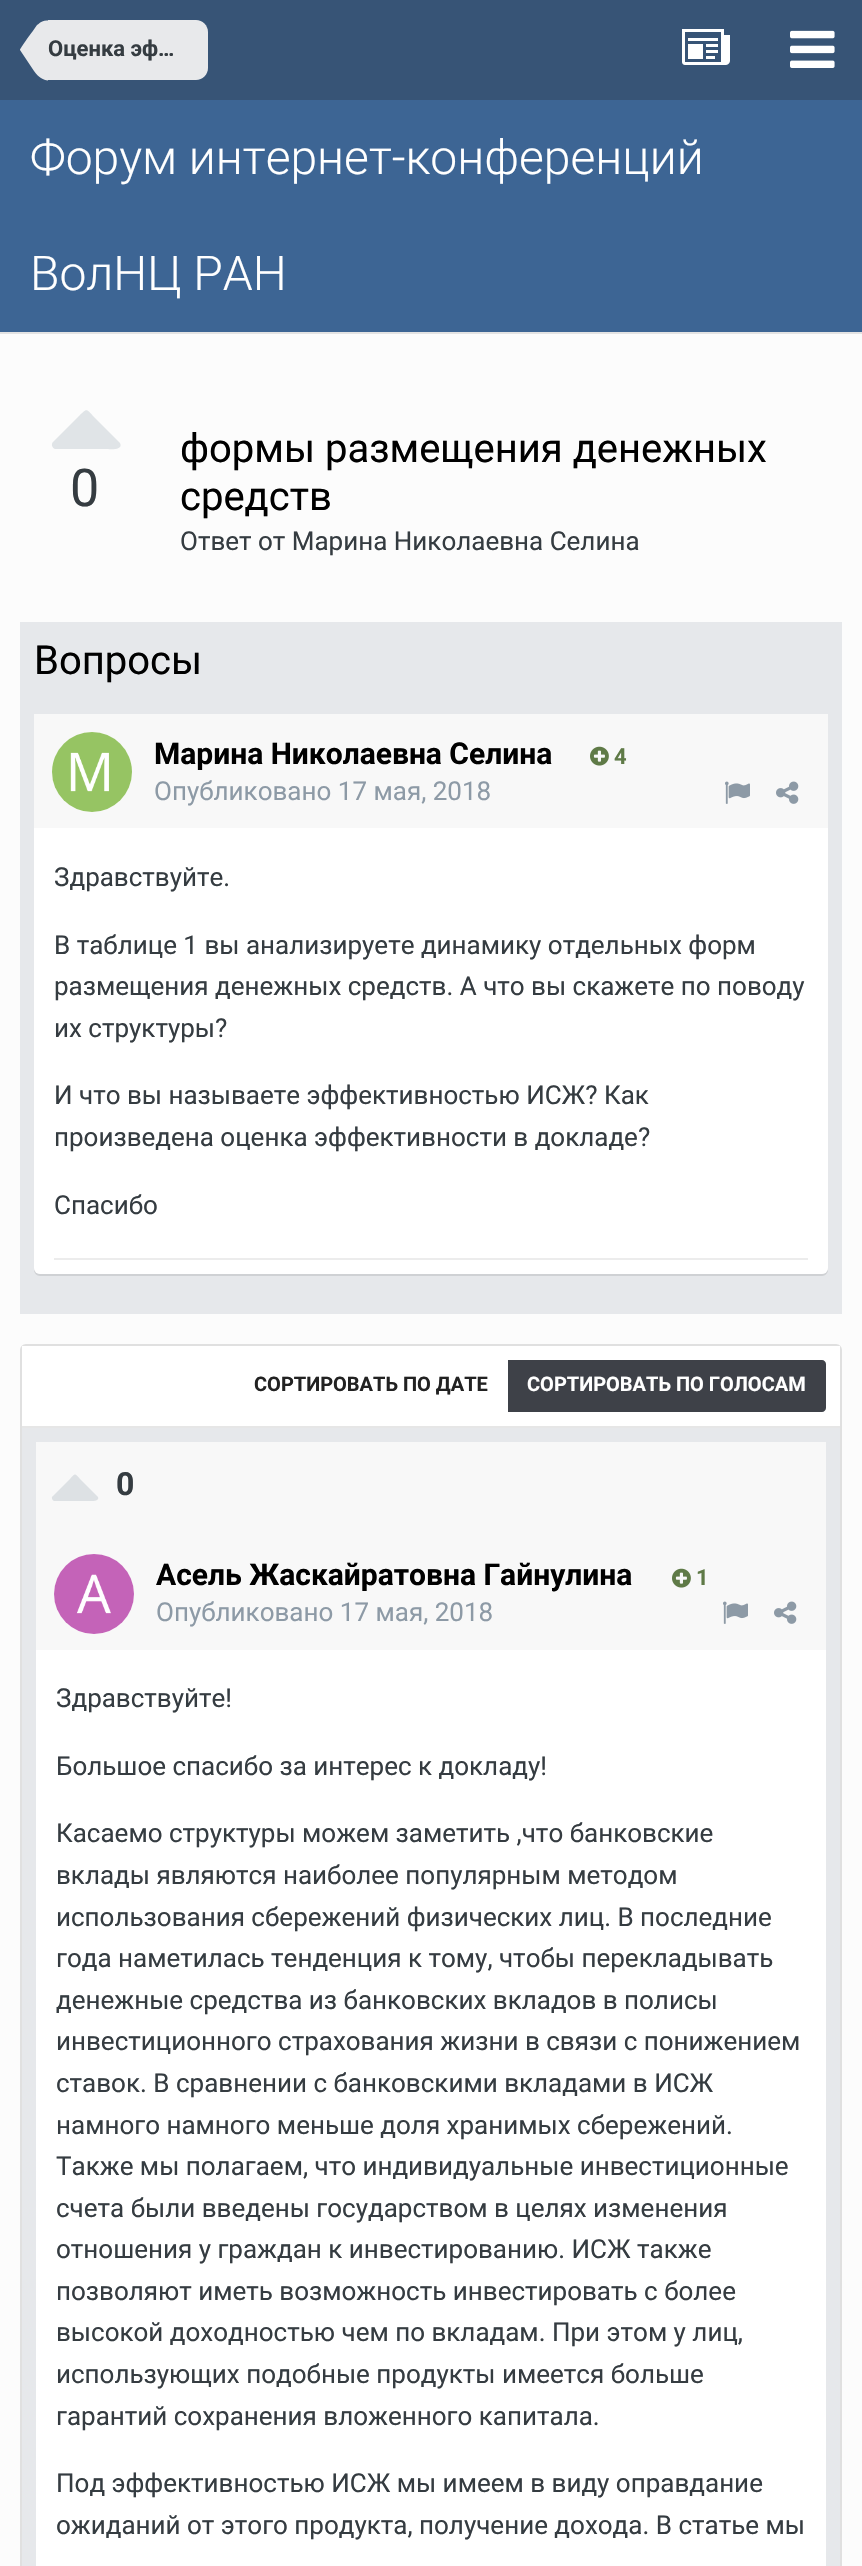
void draw(SkCanvas* canvas) {
    SkPaint paint;
    paint.setAntiAlias(true);
    auto face = [&](const char* family, int weight, float size, bool italic = false) {
        SkFontStyle style(weight, SkFontStyle::kNormal_Width,
            italic ? SkFontStyle::kItalic_Slant : SkFontStyle::kUpright_Slant);
        SkFont result(fontMgr->matchFamilyStyle(family, style), size);
        result.setSubpixel(true);
        return result;
    };
    auto write = [&](const char* s, float x, float y, const SkFont& font, SkColor color) {
        SkPaint ink(SkColor4f::FromColor(color));
        ink.setAntiAlias(true);
        canvas->drawString(s, x, y, font, ink);
    };
    auto block = [&](float x, float y, float w, float h, SkColor color) {
        SkPaint ink(SkColor4f::FromColor(color));
        ink.setAntiAlias(true);
        canvas->drawRect(SkRect::MakeXYWH(x, y, w, h), ink);
    };
    auto card = [&](float x, float y, float w, float h, float radius, SkColor color) {
        SkPaint ink(SkColor4f::FromColor(color));
        ink.setAntiAlias(true);
        canvas->drawRoundRect(SkRect::MakeXYWH(x, y, w, h), radius, radius, ink);
    };
    auto paste = [&](const char* path, float x, float y, float w, float h) {
        auto image = SkImages::DeferredFromEncodedData(SkData::MakeFromFileName(path));
        canvas->drawImageRect(image, SkRect::MakeXYWH(x, y, w, h), SkSamplingOptions());
    };
    canvas->clear(SkColorSetRGB(252, 252, 252));
    block(0, 332, 862, 2, SkColorSetRGB(227, 227, 227));
    block(0, 0, 862, 100, SkColorSetRGB(55, 84, 118));
    paint.setColor(SkColorSetRGB(232, 233, 235));
    canvas->drawPath(SkPathBuilder().moveTo(48, 20).lineTo(196, 20).cubicTo(202.5f, 20, 208, 25.5f, 208, 32).lineTo(208, 68).cubicTo(208, 74.5f, 202.5f, 80, 196, 80).lineTo(48, 80).close().detach(), paint);
    canvas->drawPath(SkPathBuilder().moveTo(48, 50).lineTo(48, 80.5f).cubicTo(43.5f, 80, 38.5f, 77.5f, 34, 71).lineTo(20, 50).close().moveTo(48, 50).lineTo(20, 50).cubicTo(20, 48.5f, 31, 33.5f, 32.5f, 31.5f).lineTo(37, 25).lineTo(38.5f, 24).cubicTo(41, 21.5f, 44.5f, 20, 48, 20.5f).close().detach(), paint);
    auto kFont1 = face("Roboto", 700, 22);
    write("Оценка эф…", 48, 56, kFont1, SkColorSetRGB(53, 60, 65));
    paste("pic1.png", 682, 29, 48, 36);
    paste("pic2.png", 790, 30, 45, 38);
    block(0, 100, 862, 232, SkColorSetRGB(61, 101, 148));
    auto kFont2 = face("Roboto", 300, 48);
    write("Форум интернет-конференций", 30, 174, kFont2, SK_ColorWHITE);
    write("ВолНЦ РАН", 30, 290, kFont2, SK_ColorWHITE);
    paint.setColor(SkColorSetRGB(224, 228, 231));
    canvas->drawPath(SkPathBuilder().moveTo(119, 442).lineTo(120, 443).cubicTo(124, 451, 108, 449, 106, 449).lineTo(55, 449).cubicTo(52, 448, 51, 444, 53, 442).lineTo(78, 417).cubicTo(87, 408, 86, 408, 94, 417).close().detach(), paint);
    auto kFont3 = face("Roboto", 400, 52);
    write("0", 70, 506, kFont3, SkColorSetRGB(53, 60, 65));
    auto kFont4 = face("Roboto", 400, 40);
    write("формы размещения денежных", 180, 462, kFont4, SK_ColorBLACK);
    write("средств", 180, 510, kFont4, SK_ColorBLACK);
    auto kFont5 = face("Roboto", 400, 26);
    write("Ответ от Марина Николаевна Селина", 180, 550, kFont5, SkColorSetRGB(53, 60, 65));
    block(20, 622, 822, 692, SkColorSetRGB(230, 232, 235));
    write("Вопросы", 34, 674, kFont4, SK_ColorBLACK);
    paint.setColor(SkColorSetRGB(207, 209, 212));
    canvas->drawPath(SkPathBuilder().moveTo(34, 1268).lineTo(34, 1270).cubicTo(34, 1273, 37, 1276, 40, 1276).lineTo(822, 1276).cubicTo(825, 1276, 828, 1273, 828, 1270).lineTo(828, 1268).cubicTo(828, 1271, 825, 1274, 822, 1274).lineTo(40, 1274).cubicTo(37, 1274, 34, 1271, 34, 1268).close().detach(), paint);
    card(34, 714, 794, 560, 6, SK_ColorWHITE);
    block(34, 714, 794, 114, SkColorSetRGB(248, 248, 248));
    paint.setColor(SK_ColorWHITE);
    canvas->drawCircle(92, 772, 40, paint);
    paste("pic3.png", 52, 732, 80, 80);
    auto kFont6 = face("Roboto", 700, 30);
    write("Марина Николаевна Селина", 154, 764, kFont6, SK_ColorBLACK);
    paste("pic4.png", 590, 746, 19, 20);
    write("4", 614, 764, kFont1, SkColorSetRGB(95, 122, 71));
    write("Опубликовано 17 мая, 2018", 154, 800, kFont5, SkColorSetRGB(141, 154, 166));
    paste("pic5.png", 725, 781, 25, 23);
    paste("pic6.png", 776, 781, 23, 23);
    write("Здравствуйте.", 54, 886, kFont5, SkColorSetRGB(53, 60, 65));
    write("В таблице 1 вы анализируете динамику отдельных форм", 54, 954, kFont5, SkColorSetRGB(53, 60, 65));
    write("размещения денежных средств. А что вы скажете по поводу", 54, 995, kFont5, SkColorSetRGB(53, 60, 65));
    write("их структуры?", 54, 1037, kFont5, SkColorSetRGB(53, 60, 65));
    write("И что вы называете эффективностью ИСЖ? Как", 54, 1104, kFont5, SkColorSetRGB(53, 60, 65));
    write("произведена оценка эффективности в докладе?", 54, 1146, kFont5, SkColorSetRGB(53, 60, 65));
    write("Спасибо", 54, 1214, kFont5, SkColorSetRGB(53, 60, 65));
    block(54, 1258, 754, 2, SkColorSetRGB(236, 236, 236));
    paint.setStyle(SkPaint::kStroke_Style);
    paint.setStrokeWidth(2);
    paint.setColor(SkColorSetRGB(224, 224, 224));
    canvas->drawRoundRect(SkRect::MakeXYWH(21, 1345, 820, 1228), 5, 5, paint);
    block(22, 1346, 818, 80, SK_ColorWHITE);
    block(22, 1426, 818, 2, SkColorSetRGB(230, 230, 230));
    auto kFont7 = face("Roboto", 700, 20);
    write("СОРТИРОВАТЬ ПО ДАТЕ", 254, 1391, kFont7, SkColorSetRGB(34, 34, 34));
    paint.setStyle(SkPaint::kFill_Style);
    paint.setColor(SkColorSetRGB(62, 65, 72));
    canvas->drawPath(SkPathBuilder().moveTo(508, 1360).lineTo(822, 1360).cubicTo(824, 1360, 826, 1362, 826, 1364).lineTo(826, 1408).cubicTo(826, 1410, 824, 1412, 822, 1412).lineTo(508, 1412).close().detach(), paint);
    write("СОРТИРОВАТЬ ПО ГОЛОСАМ", 527, 1391, kFont7, SK_ColorWHITE);
    block(22, 1428, 818, 1138, SkColorSetRGB(230, 232, 235));
    block(36, 1650, 790, 916, SK_ColorWHITE);
    block(36, 1442, 790, 208, SkColorSetRGB(248, 248, 248));
    paint.setColor(SkColorSetRGB(221, 225, 228));
    canvas->drawPath(SkPathBuilder().moveTo(97, 1496).lineTo(98, 1497).cubicTo(100, 1502, 89, 1501, 88, 1501).lineTo(54, 1501).cubicTo(52, 1500, 51, 1497, 53, 1496).lineTo(70, 1479).cubicTo(75, 1473, 75, 1473, 80, 1479).close().detach(), paint);
    auto kFont8 = face("Roboto", 700, 32);
    write("0", 116, 1495, kFont8, SkColorSetRGB(53, 60, 65));
    paint.setColor(SK_ColorWHITE);
    canvas->drawCircle(94, 1594, 40, paint);
    paste("pic7.png", 54, 1554, 80, 80);
    write("Асель Жаскайратовна Гайнулина", 156, 1585, kFont6, SK_ColorBLACK);
    paste("pic4.png", 672, 1568, 19, 20);
    write("1", 696, 1585, kFont1, SkColorSetRGB(95, 122, 71));
    write("Опубликовано 17 мая, 2018", 156, 1621, kFont5, SkColorSetRGB(141, 154, 166));
    paste("pic5.png", 723, 1601, 25, 23);
    paste("pic6.png", 774, 1601, 23, 23);
    write("Здравствуйте!", 56, 1707, kFont5, SkColorSetRGB(53, 60, 65));
    write("Большое спасибо за интерес к докладу!", 56, 1775, kFont5, SkColorSetRGB(53, 60, 65));
    write("Касаемо структуры можем заметить ,что банковские", 56, 1842, kFont5, SkColorSetRGB(53, 60, 65));
    write("вклады являются наиболее популярным методом", 56, 1884, kFont5, SkColorSetRGB(53, 60, 65));
    write("использования сбережений физических лиц. В последние", 56, 1926, kFont5, SkColorSetRGB(53, 60, 65));
    write("года наметилась тенденция к тому, чтобы перекладывать", 56, 1967, kFont5, SkColorSetRGB(53, 60, 65));
    write("денежные средства из банковских вкладов в полисы", 56, 2009, kFont5, SkColorSetRGB(53, 60, 65));
    write("инвестиционного страхования жизни в связи с понижением", 56, 2050, kFont5, SkColorSetRGB(53, 60, 65));
    write("ставок. В сравнении с банковскими вкладами в ИСЖ", 56, 2092, kFont5, SkColorSetRGB(53, 60, 65));
    write("намного намного меньше доля хранимых сбережений.", 56, 2134, kFont5, SkColorSetRGB(53, 60, 65));
    write("Также мы полагаем, что индивидуальные инвестиционные", 56, 2175, kFont5, SkColorSetRGB(53, 60, 65));
    write("счета были введены государством в целях изменения", 56, 2217, kFont5, SkColorSetRGB(53, 60, 65));
    write("отношения у граждан к инвестированию. ИСЖ также", 56, 2258, kFont5, SkColorSetRGB(53, 60, 65));
    write("позволяют иметь возможность инвестировать с более", 56, 2300, kFont5, SkColorSetRGB(53, 60, 65));
    write("высокой доходностью чем по вкладам. При этом у лиц,", 56, 2341, kFont5, SkColorSetRGB(53, 60, 65));
    write("использующих подобные продукты имеется больше", 56, 2383, kFont5, SkColorSetRGB(53, 60, 65));
    write("гарантий сохранения вложенного капитала.", 56, 2425, kFont5, SkColorSetRGB(53, 60, 65));
    write("Под эффективностью ИСЖ мы имеем в виду оправдание", 56, 2492, kFont5, SkColorSetRGB(53, 60, 65));
    write("ожиданий от этого продукта, получение дохода. В статье мы", 56, 2534, kFont5, SkColorSetRGB(53, 60, 65));
}
